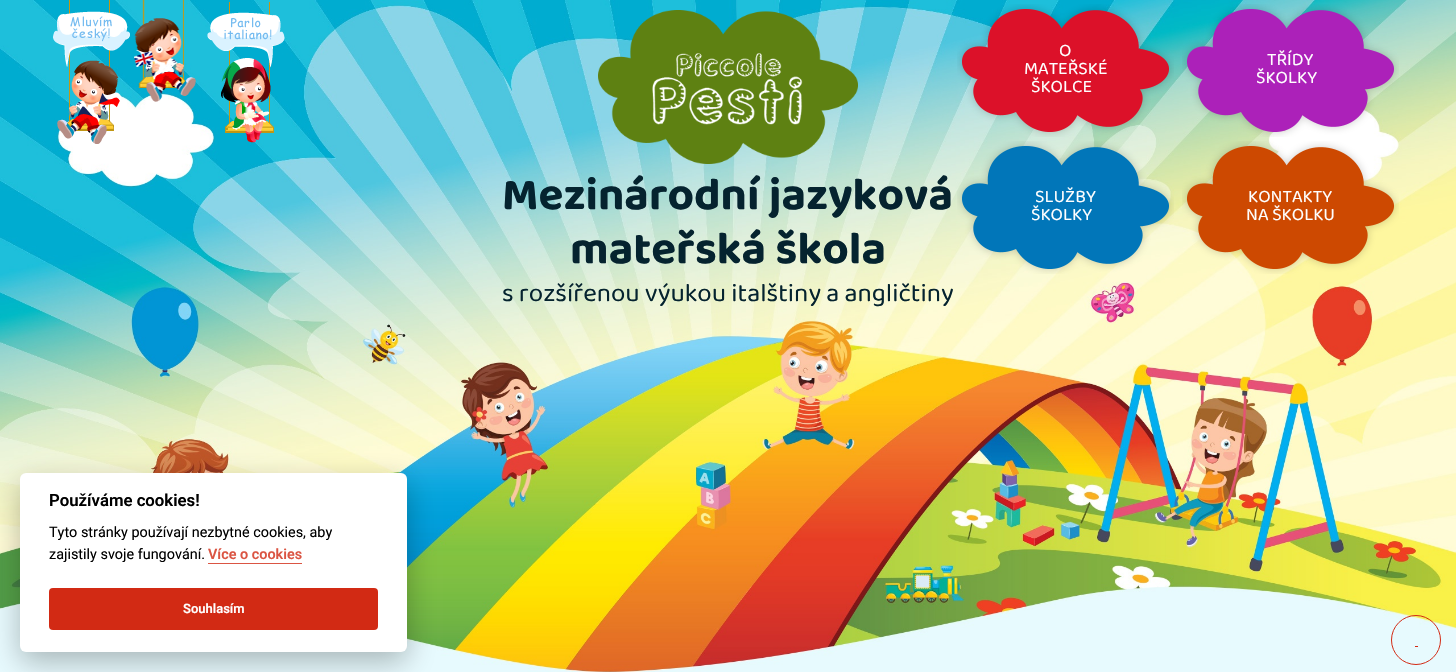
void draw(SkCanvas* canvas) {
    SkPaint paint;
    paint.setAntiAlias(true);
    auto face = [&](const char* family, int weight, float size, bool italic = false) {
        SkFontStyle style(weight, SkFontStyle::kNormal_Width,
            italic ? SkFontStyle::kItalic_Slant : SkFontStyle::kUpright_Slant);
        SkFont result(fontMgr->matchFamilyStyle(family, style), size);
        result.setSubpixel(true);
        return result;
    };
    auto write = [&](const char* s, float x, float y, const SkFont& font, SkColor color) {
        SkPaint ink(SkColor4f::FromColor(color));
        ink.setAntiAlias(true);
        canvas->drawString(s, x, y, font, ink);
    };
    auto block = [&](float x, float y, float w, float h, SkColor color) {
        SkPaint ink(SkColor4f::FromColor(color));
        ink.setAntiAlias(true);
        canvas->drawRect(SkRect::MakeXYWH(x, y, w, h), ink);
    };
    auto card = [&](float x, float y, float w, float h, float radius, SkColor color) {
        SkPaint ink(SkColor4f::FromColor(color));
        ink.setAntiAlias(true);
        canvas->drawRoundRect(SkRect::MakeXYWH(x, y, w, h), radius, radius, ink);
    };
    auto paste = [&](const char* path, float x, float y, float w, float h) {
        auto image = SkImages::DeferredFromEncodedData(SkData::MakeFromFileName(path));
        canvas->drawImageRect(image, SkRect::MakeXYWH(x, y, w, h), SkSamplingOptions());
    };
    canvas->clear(SK_ColorWHITE);
    paste("pic1.png", 0, 0, 1456, 672);
    paste("pic2.png", 53, 0, 77, 144);
    paste("pic3.png", 134, 0, 62, 102);
    paste("pic4.png", 207, 2, 78, 141);
    paste("pic5.png", 598, 10, 260, 154);
    paste("pic6.png", 957, 4, 217, 133);
    auto kFont1 = face("Baloo 2", 400, 18);
    write("O", 1059, 56, kFont1, SK_ColorWHITE);
    write("MATEŘSKÉ", 1024, 74, kFont1, SK_ColorWHITE);
    write("ŠKOLCE", 1031, 92, kFont1, SK_ColorWHITE);
    paste("pic7.png", 1182, 4, 217, 133);
    write("TŘÍDY", 1267, 65, kFont1, SK_ColorWHITE);
    write("ŠKOLKY", 1256, 83, kFont1, SK_ColorWHITE);
    paste("pic8.png", 957, 141, 217, 133);
    write("SLUŽBY", 1035, 202, kFont1, SK_ColorWHITE);
    write("ŠKOLKY", 1031, 220, kFont1, SK_ColorWHITE);
    paste("pic9.png", 1182, 141, 217, 133);
    write("KONTAKTY", 1248, 202, kFont1, SK_ColorWHITE);
    write("NA ŠKOLKU", 1246, 220, kFont1, SK_ColorWHITE);
    auto kFont2 = face("Baloo 2", 700, 46);
    write("Mezinárodní jazyková", 502, 209, kFont2, SkColorSetRGB(5, 35, 47));
    write("mateřská škola", 570, 263, kFont2, SkColorSetRGB(5, 35, 47));
    auto kFont3 = face("Baloo 2", 400, 26);
    write("s rozšířenou výukou italštiny a angličtiny", 502, 301, kFont3, SkColorSetRGB(5, 35, 47));
    paint.setColor(SkColorSetARGB(71, 2, 2, 3));
    paint.setMaskFilter(SkMaskFilter::MakeBlur(kNormal_SkBlurStyle, 15));
    canvas->drawRoundRect(SkRect::MakeXYWH(20, 483, 387, 179), 6, 6, paint);
    paint.setMaskFilter(nullptr);
    card(20, 473, 387, 179, 6, SK_ColorWHITE);
    auto kFont4 = face("Roboto", 600, 16.75f);
    write("Používáme cookies!", 49, 506, kFont4, SK_ColorBLACK);
    auto kFont5 = face("Roboto", 400, 14.4f);
    write("Tyto stránky používají nezbytné cookies, aby", 49, 537, kFont5, SK_ColorBLACK);
    write("zajistily svoje fungování.", 49, 559, kFont5, SK_ColorBLACK);
    auto kFont6 = face("Roboto", 600, 14.4f);
    write("Více o cookies", 208, 559, kFont6, SkColorSetRGB(219, 85, 67));
    block(208, 563, 94, 1, SkColorSetRGB(219, 85, 67));
    card(49, 588, 329, 42, 4, SkColorSetRGB(210, 42, 20));
    auto kFont7 = face("Roboto", 600, 13);
    write("Souhlasím", 183, 613, kFont7, SK_ColorWHITE);
    paint.setStyle(SkPaint::kStroke_Style);
    paint.setStrokeWidth(1);
    paint.setColor(SkColorSetRGB(210, 42, 20));
    canvas->drawCircle(1416, 640, 24.5f, paint);
    block(1415, 646, 3, 1, SkColorSetRGB(210, 42, 20));
}
